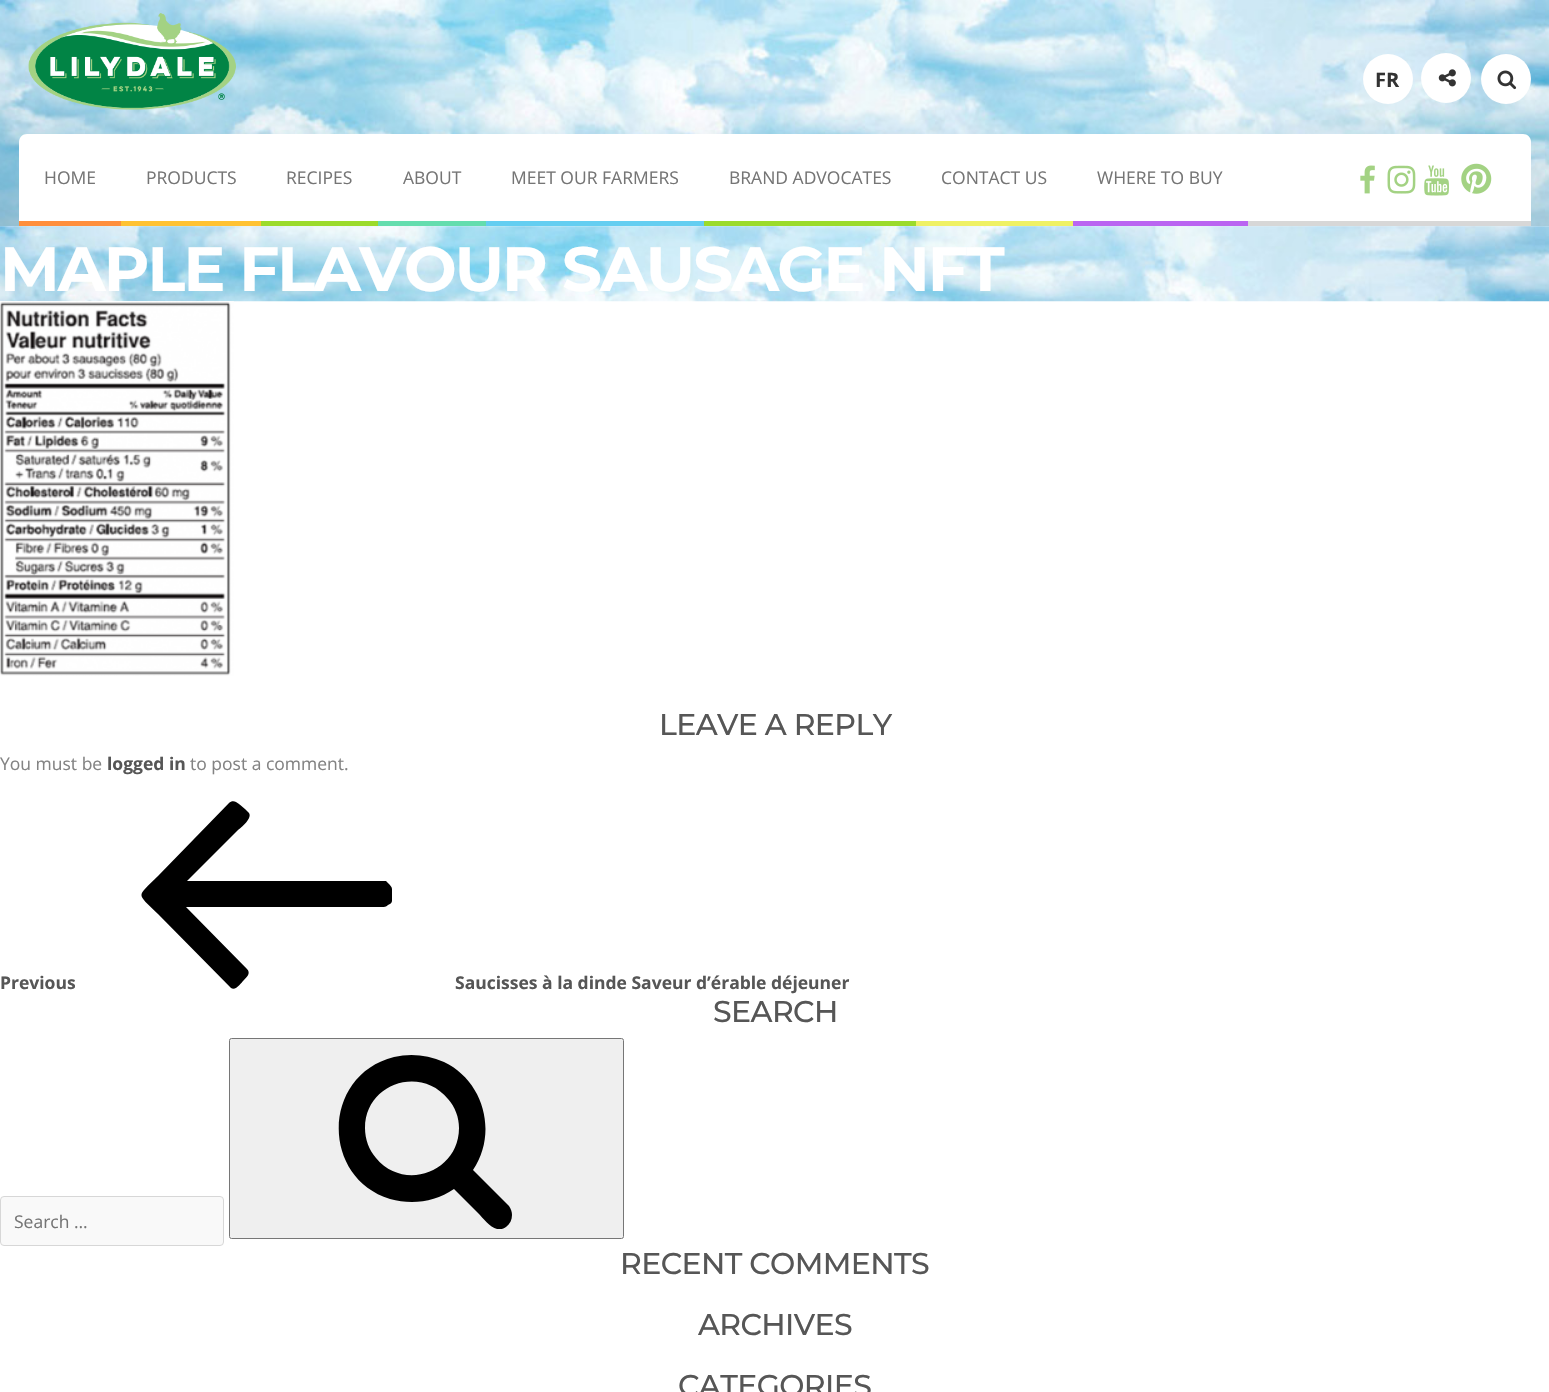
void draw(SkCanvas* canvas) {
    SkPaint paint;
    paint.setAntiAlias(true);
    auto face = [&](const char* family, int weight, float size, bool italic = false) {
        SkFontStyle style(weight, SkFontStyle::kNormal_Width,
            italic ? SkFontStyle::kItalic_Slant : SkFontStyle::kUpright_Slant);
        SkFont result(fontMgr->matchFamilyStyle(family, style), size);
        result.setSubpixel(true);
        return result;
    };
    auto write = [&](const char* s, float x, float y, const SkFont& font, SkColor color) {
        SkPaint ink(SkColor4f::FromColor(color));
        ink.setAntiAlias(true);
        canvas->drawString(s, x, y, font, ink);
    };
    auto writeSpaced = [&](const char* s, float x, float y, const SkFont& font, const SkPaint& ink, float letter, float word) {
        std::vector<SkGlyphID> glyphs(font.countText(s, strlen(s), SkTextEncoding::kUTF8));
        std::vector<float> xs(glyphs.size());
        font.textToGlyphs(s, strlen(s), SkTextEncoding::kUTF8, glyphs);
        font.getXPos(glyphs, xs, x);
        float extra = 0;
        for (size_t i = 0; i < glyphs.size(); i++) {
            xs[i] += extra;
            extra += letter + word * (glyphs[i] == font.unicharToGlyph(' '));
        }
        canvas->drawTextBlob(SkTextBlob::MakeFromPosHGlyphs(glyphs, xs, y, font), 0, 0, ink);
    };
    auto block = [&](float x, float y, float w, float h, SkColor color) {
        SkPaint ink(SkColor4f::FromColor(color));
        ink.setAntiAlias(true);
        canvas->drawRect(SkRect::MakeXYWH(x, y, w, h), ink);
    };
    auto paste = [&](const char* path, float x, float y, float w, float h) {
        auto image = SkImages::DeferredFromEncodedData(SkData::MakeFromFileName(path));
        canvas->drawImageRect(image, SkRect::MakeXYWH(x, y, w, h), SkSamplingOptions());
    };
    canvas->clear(SK_ColorWHITE);
    paste("pic1.png", 0, 0, 1549, 227);
    paste("pic2.png", 28, 13, 208, 97);
    paint.setColor(SK_ColorWHITE);
    canvas->drawPath(SkPathBuilder().moveTo(27, 134).lineTo(1523, 134).cubicTo(1527.5f, 134, 1531, 137.5f, 1531, 142).lineTo(1531, 226).lineTo(19, 226).lineTo(19, 142).cubicTo(19, 137.5f, 22.5f, 134, 27, 134).close().detach(), paint);
    block(1248, 221, 283, 5, SkColorSetRGB(215, 215, 215));
    canvas->drawCircle(1388, 79, 25, paint);
    auto kFont1 = face("Open Sans", 700, 20);
    write("FR", 1375, 87, kFont1, SkColorSetRGB(51, 51, 51));
    canvas->drawCircle(1446, 78, 25, paint);
    paste("pic3.png", 1438, 69, 18, 18);
    canvas->drawCircle(1506, 79, 25, paint);
    paste("pic4.png", 1497, 70, 20, 20);
    auto kFont2 = face("Open Sans", 400, 17.5f);
    write("HOME", 44, 184, kFont2, SkColorSetRGB(117, 117, 117));
    block(19, 221, 102, 5, SkColorSetRGB(255, 143, 60));
    write("PRODUCTS", 146, 184, kFont2, SkColorSetRGB(117, 117, 117));
    block(121, 221, 140, 5, SkColorSetRGB(255, 194, 50));
    write("RECIPES", 286, 184, kFont2, SkColorSetRGB(117, 117, 117));
    block(261, 221, 117, 5, SkColorSetRGB(155, 219, 43));
    write("ABOUT", 403, 184, kFont2, SkColorSetRGB(117, 117, 117));
    block(378, 221, 108, 5, SkColorSetRGB(100, 221, 174));
    write("MEET OUR FARMERS", 511, 184, kFont2, SkColorSetRGB(117, 117, 117));
    block(486, 221, 218, 5, SkColorSetRGB(100, 206, 241));
    write("BRAND ADVOCATES", 729, 184, kFont2, SkColorSetRGB(117, 117, 117));
    block(704, 221, 212, 5, SkColorSetRGB(155, 219, 43));
    write("CONTACT US", 941, 184, kFont2, SkColorSetRGB(117, 117, 117));
    block(916, 221, 157, 5, SkColorSetRGB(239, 241, 100));
    write("WHERE TO BUY", 1097, 184, kFont2, SkColorSetRGB(117, 117, 117));
    block(1073, 221, 175, 5, SkColorSetRGB(186, 100, 241));
    paste("pic5.png", 1360, 165, 15, 29);
    paste("pic6.png", 1387, 165, 29, 29);
    paste("pic7.png", 1424, 165, 25, 31);
    paste("pic8.png", 1461, 163, 31, 31);
    paste("pic9.png", 0, 226, 1549, 76);
    auto kFont3 = face("Montserrat", 700, 62.5f);
    writeSpaced("MAPLE FLAVOUR SAUSAGE NFT", 0, 291, kFont3, paint, -1.9f, 0);
    paste("pic10.png", 0, 301, 234, 375);
    auto kFont4 = face("Montserrat", 500, 30);
    paint.setColor(SkColorSetRGB(86, 86, 86));
    writeSpaced("LEAVE A REPLY", 659, 735, kFont4, paint, -0.6f, 0);
    write("You must be", 0, 770, kFont2, SkColorSetRGB(131, 131, 131));
    auto kFont5 = face("Open Sans", 700, 17.5f);
    write("logged in", 107, 770, kFont5, SkColorSetRGB(86, 86, 86));
    write("to post a comment.", 190, 770, kFont2, SkColorSetRGB(131, 131, 131));
    write("Previous", 0, 989, kFont5, SkColorSetRGB(86, 86, 86));
    paint.setColor(SK_ColorBLACK);
    canvas->drawPath(SkPathBuilder().moveTo(389, 884).lineTo(386, 881).lineTo(187, 881).lineTo(238, 830).cubicTo(238, 830, 253, 819, 249, 813).lineTo(245, 809).cubicTo(242, 807, 240, 804, 236, 802).cubicTo(234, 801, 231, 801, 229, 803).lineTo(158, 876).cubicTo(136, 898, 136, 892, 158, 914).lineTo(231, 988).cubicTo(236, 991, 241, 983, 244, 980).cubicTo(247, 977, 251, 973, 247, 969).lineTo(186, 907).lineTo(384, 907).cubicTo(385, 907, 387, 906, 388, 905).cubicTo(390, 904, 392, 903, 392, 901).lineTo(392, 889).cubicTo(392, 887, 390, 885, 389, 884).close().detach(), paint);
    write("Saucisses à la dinde Saveur d’érable déjeuner", 455, 989, kFont5, SkColorSetRGB(86, 86, 86));
    paint.setColor(SkColorSetRGB(86, 86, 86));
    writeSpaced("SEARCH", 713, 1022, kFont4, paint, -0.6f, 0);
    paint.setColor(SkColorSetRGB(249, 249, 249));
    canvas->drawRoundRect(SkRect::MakeXYWH(0.5f, 1196.5f, 223, 49), 3.5f, 3.5f, paint);
    paint.setStyle(SkPaint::kStroke_Style);
    paint.setStrokeWidth(1);
    paint.setColor(SkColorSetRGB(215, 215, 215));
    canvas->drawRoundRect(SkRect::MakeXYWH(0.5f, 1196.5f, 223, 49), 3.5f, 3.5f, paint);
    write("Search …", 14, 1228, kFont2, SkColorSetRGB(117, 117, 117));
    paint.setStyle(SkPaint::kFill_Style);
    paint.setColor(SkColorSetRGB(239, 239, 239));
    canvas->drawRoundRect(SkRect::MakeXYWH(229.5f, 1038.5f, 394, 200), 2, 2, paint);
    paint.setStyle(SkPaint::kStroke_Style);
    paint.setColor(SkColorSetRGB(118, 118, 118));
    canvas->drawRoundRect(SkRect::MakeXYWH(229.5f, 1038.5f, 394, 200), 2, 2, paint);
    canvas->save();
    canvas->clipRect(SkRect::MakeXYWH(239, 1041, 375, 188));
    paint.setStyle(SkPaint::kFill_Style);
    paint.setColor(SK_ColorBLACK);
    canvas->drawPath(SkPathBuilder().moveTo(459, 1128).cubicTo(459, 1117, 455, 1107, 448, 1099).cubicTo(420, 1065, 365, 1084, 365, 1128).cubicTo(365, 1139, 369, 1150, 376, 1158).cubicTo(404, 1192, 459, 1172, 459, 1128).close().moveTo(512, 1215).cubicTo(512, 1220, 510, 1224, 506, 1227).cubicTo(495, 1235, 485, 1220, 478, 1213).lineTo(454, 1189).cubicTo(435, 1202, 412, 1205, 390, 1199).cubicTo(320, 1177, 322, 1075, 394, 1057).cubicTo(411, 1053, 428, 1055, 444, 1062).cubicTo(484, 1081, 498, 1133, 473, 1170).lineTo(509, 1206).cubicTo(511, 1209, 512, 1212, 512, 1215).close().detach(), paint);
    canvas->restore();
    paint.setColor(SkColorSetRGB(86, 86, 86));
    writeSpaced("RECENT COMMENTS", 620, 1274, kFont4, paint, -0.6f, 0);
    writeSpaced("ARCHIVES", 698, 1335, kFont4, paint, -0.6f, 0);
    writeSpaced("CATEGORIES", 678, 1396, kFont4, paint, -0.6f, 0);
}
